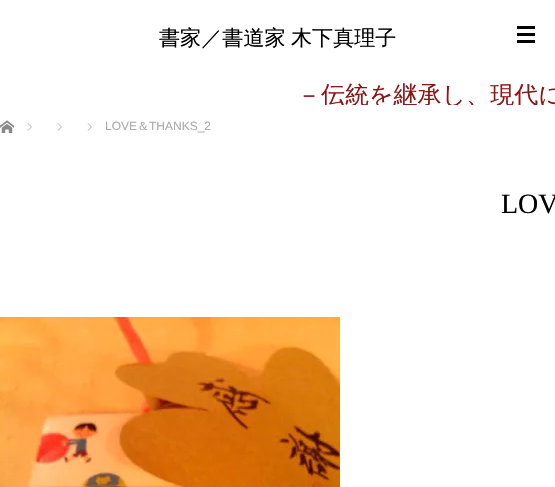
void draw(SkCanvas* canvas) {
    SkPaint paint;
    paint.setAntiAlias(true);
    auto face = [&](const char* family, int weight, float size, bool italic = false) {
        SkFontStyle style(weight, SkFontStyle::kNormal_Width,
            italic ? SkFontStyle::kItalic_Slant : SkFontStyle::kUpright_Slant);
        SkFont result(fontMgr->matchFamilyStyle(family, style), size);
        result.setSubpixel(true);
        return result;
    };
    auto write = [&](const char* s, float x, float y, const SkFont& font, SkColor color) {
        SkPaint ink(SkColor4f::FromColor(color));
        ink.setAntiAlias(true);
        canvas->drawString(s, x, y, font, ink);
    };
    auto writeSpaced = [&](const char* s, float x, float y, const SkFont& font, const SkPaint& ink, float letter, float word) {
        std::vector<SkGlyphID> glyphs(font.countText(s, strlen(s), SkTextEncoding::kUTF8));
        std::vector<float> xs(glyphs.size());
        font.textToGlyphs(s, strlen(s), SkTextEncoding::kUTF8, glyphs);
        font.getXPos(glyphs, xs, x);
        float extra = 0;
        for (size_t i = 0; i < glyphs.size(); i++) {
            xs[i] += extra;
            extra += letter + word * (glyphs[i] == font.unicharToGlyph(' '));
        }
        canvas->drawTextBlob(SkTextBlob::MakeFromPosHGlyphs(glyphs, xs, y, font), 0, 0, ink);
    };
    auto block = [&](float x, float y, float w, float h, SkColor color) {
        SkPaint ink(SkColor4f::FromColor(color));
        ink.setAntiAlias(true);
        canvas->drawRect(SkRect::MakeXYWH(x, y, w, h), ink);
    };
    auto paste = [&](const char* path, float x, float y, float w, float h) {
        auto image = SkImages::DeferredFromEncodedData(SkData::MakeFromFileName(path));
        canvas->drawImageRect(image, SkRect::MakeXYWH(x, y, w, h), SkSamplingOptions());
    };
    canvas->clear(SK_ColorWHITE);
    auto kFont1 = face("WenQuanYi Zen Hei", 500, 21.1f);
    paint.setColor(SK_ColorBLACK);
    writeSpaced("書家／書道家 木下真理子", 159, 45, kFont1, paint, 0, -1);
    block(517, 26, 18, 3, SK_ColorBLACK);
    block(517, 33, 18, 3, SK_ColorBLACK);
    block(517, 40, 18, 3, SK_ColorBLACK);
    canvas->save();
    canvas->clipRect(SkRect::MakeXYWH(0, 83, 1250, 22));
    auto kFont2 = face("WenQuanYi Zen Hei", 500, 24);
    write("－伝統を継承し、現代に", 297, 103, kFont2, SkColorSetRGB(139, 22, 22));
    canvas->restore();
    paste("pic1.png", 0, 120, 14, 13);
    paste("pic2.png", 27, 123, 5, 8);
    paste("pic2.png", 57, 123, 5, 8);
    paste("pic2.png", 87, 123, 5, 8);
    auto kFont3 = face("Liberation Sans", 400, 12);
    write("LOVE", 105, 130, kFont3, SkColorSetRGB(170, 170, 170));
    auto kFont4 = face("WenQuanYi Zen Hei", 500, 12);
    write("＆", 137, 130, kFont4, SkColorSetRGB(170, 170, 170));
    write("THANKS_2", 149, 130, kFont3, SkColorSetRGB(170, 170, 170));
    auto kFont5 = face("Liberation Serif", 400, 28);
    write("LOV", 501, 213, kFont5, SK_ColorBLACK);
    paste("pic3.png", 0, 317, 340, 170);
}
